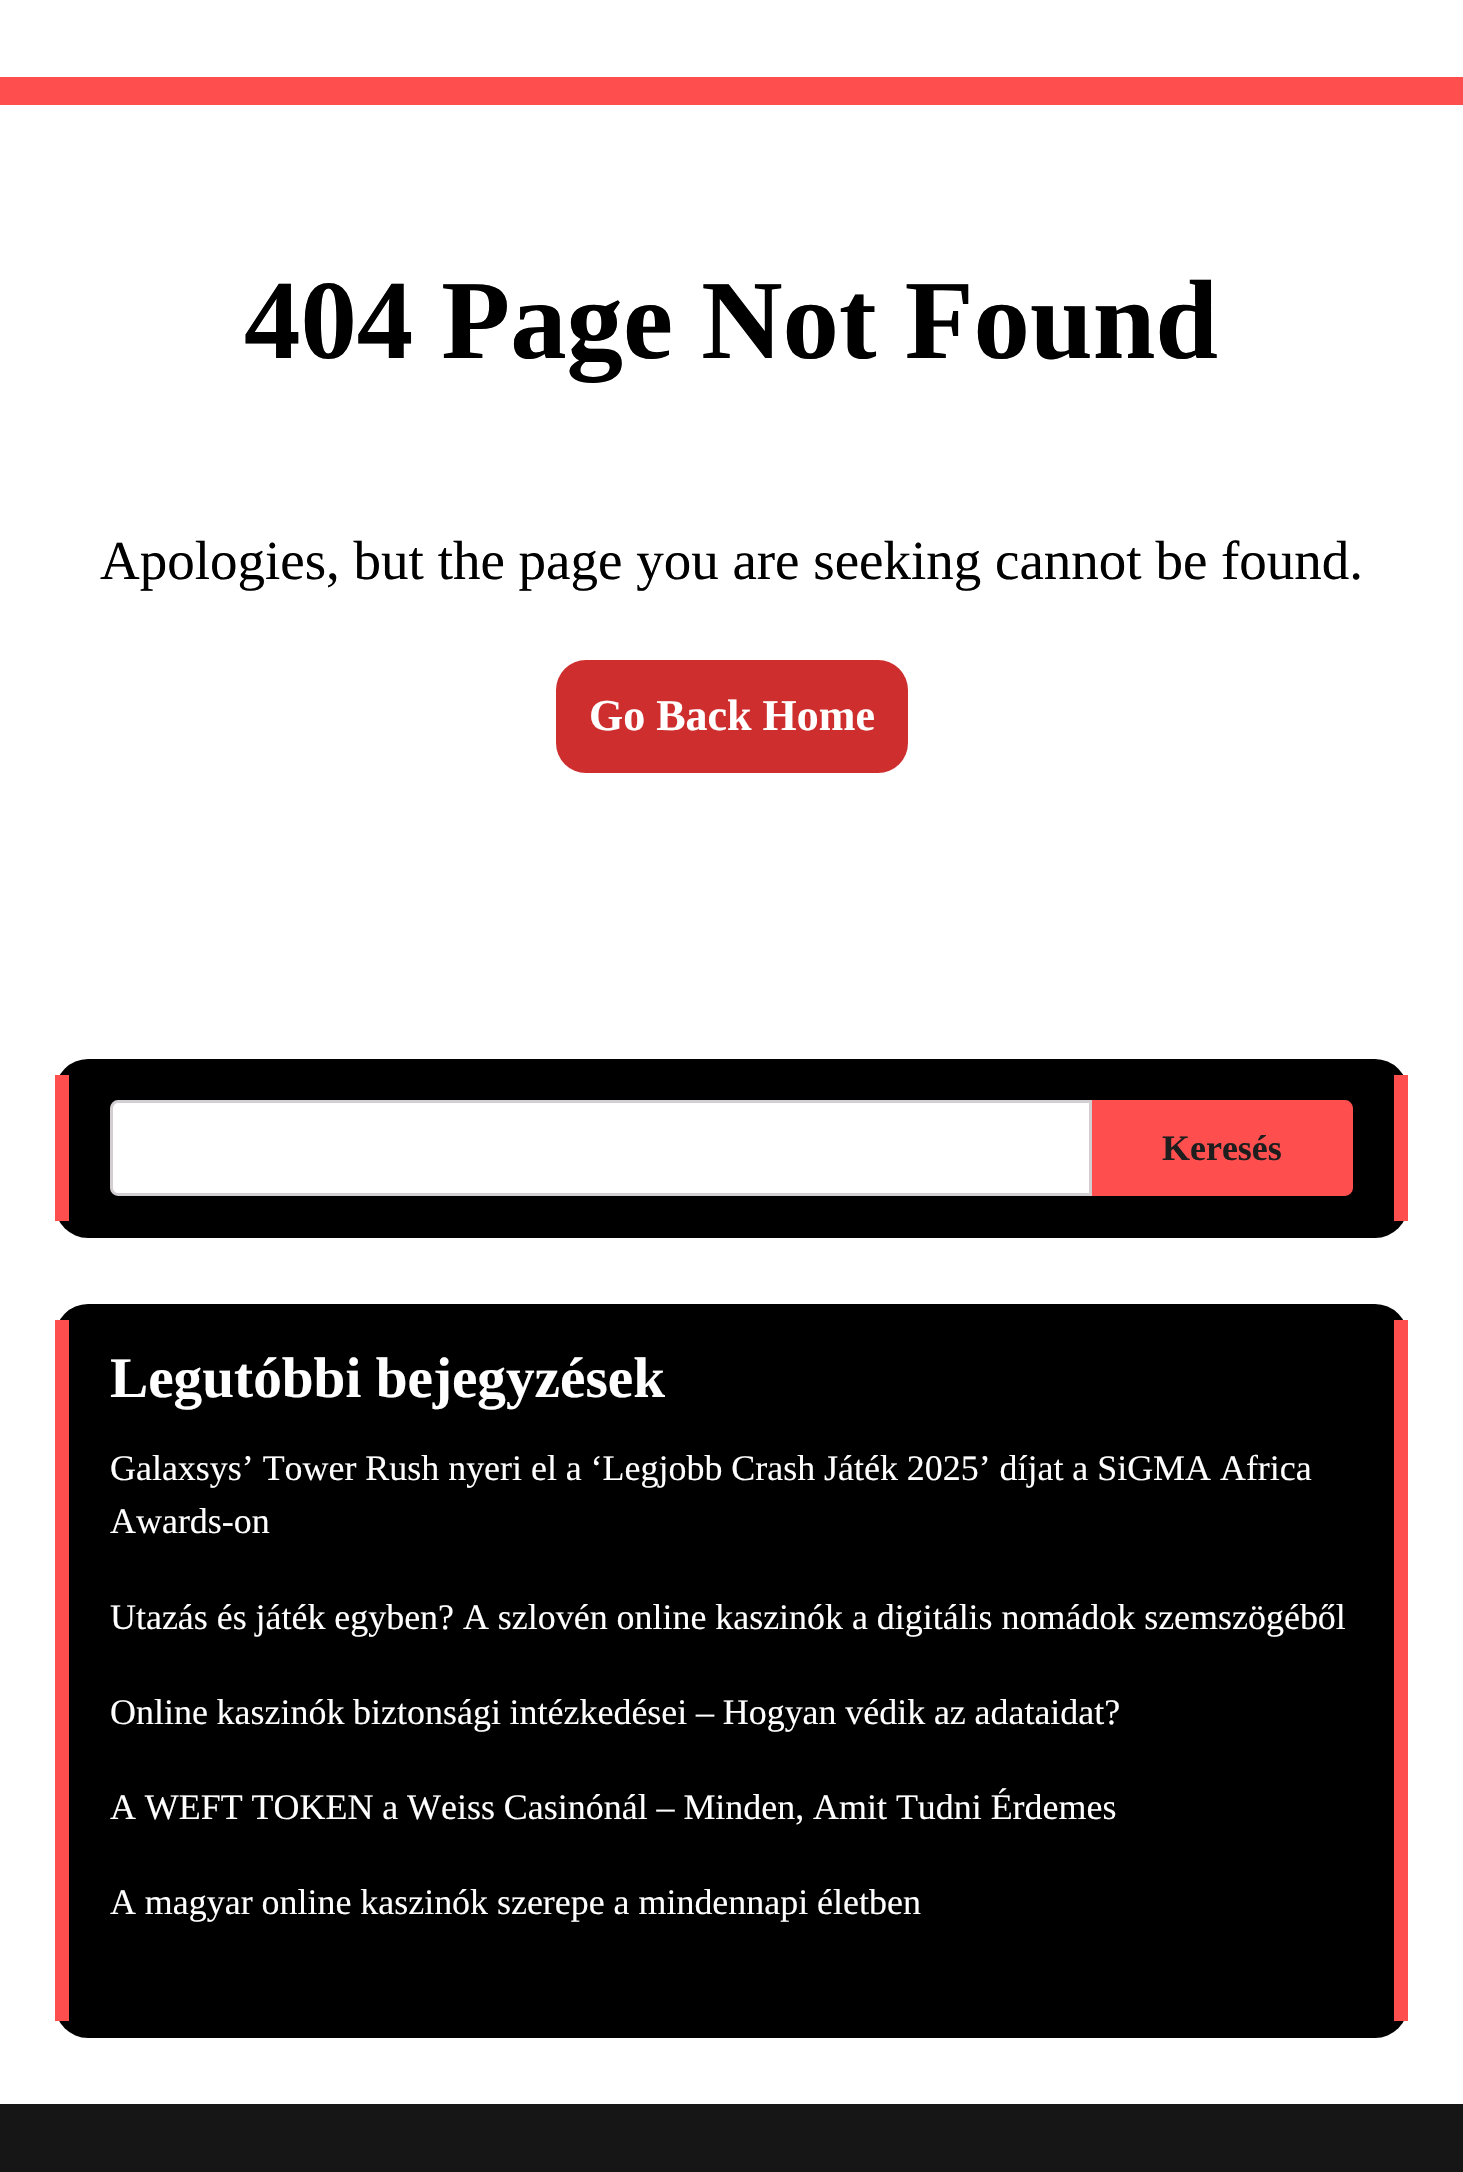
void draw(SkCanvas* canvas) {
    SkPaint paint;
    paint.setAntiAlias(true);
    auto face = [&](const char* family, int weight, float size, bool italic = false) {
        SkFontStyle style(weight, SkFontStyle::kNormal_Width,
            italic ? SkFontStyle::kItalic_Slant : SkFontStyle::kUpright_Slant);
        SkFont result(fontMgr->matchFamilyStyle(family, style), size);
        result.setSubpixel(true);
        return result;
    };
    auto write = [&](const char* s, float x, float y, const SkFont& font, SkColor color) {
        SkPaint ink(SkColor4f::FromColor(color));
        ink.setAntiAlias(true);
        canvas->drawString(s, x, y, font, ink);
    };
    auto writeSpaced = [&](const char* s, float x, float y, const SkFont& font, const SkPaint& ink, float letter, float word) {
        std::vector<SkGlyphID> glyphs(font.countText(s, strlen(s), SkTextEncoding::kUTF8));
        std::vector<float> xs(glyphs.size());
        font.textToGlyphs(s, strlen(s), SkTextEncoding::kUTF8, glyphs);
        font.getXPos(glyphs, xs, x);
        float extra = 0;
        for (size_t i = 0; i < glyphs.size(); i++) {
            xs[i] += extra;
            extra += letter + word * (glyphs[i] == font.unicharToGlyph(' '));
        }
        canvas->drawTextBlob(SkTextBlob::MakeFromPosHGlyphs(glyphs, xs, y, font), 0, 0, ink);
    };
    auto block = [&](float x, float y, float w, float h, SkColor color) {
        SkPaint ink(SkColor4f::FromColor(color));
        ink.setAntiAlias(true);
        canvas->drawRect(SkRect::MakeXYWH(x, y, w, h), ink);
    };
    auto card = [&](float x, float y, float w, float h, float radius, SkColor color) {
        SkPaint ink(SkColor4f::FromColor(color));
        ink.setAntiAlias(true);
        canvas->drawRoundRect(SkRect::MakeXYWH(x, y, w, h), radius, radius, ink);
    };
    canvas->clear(SK_ColorWHITE);
    block(0, 77, 1463, 28, SkColorSetRGB(255, 78, 78));
    auto kFont1 = face("Liberation Serif", 700, 112.75f);
    write("404 Page Not Found", 244, 358, kFont1, SK_ColorBLACK);
    auto kFont2 = face("Liberation Serif", 400, 55);
    write("Apologies, but the page you are seeking cannot be found.", 100, 579, kFont2, SK_ColorBLACK);
    card(556, 660, 352, 113, 30, SkColorSetRGB(207, 46, 46));
    auto kFont3 = face("Liberation Serif", 700, 44);
    write("Go Back Home", 589, 730, kFont3, SK_ColorWHITE);
    card(55, 1059, 1353, 179, 33, SK_ColorBLACK);
    block(1394, 1075, 14, 146, SkColorSetRGB(255, 78, 78));
    block(55, 1075, 14, 146, SkColorSetRGB(255, 78, 78));
    paint.setColor(SK_ColorWHITE);
    canvas->drawPath(SkPathBuilder().moveTo(118, 1101.5f).lineTo(1090.5f, 1101.5f).lineTo(1090.5f, 1194.5f).lineTo(118, 1194.5f).cubicTo(114.5f, 1194.5f, 111.5f, 1191.5f, 111.5f, 1188).lineTo(111.5f, 1108).cubicTo(111.5f, 1104.5f, 114.5f, 1101.5f, 118, 1101.5f).close().detach(), paint);
    paint.setStyle(SkPaint::kStroke_Style);
    paint.setStrokeWidth(3);
    paint.setColor(SkColorSetRGB(211, 206, 210));
    canvas->drawPath(SkPathBuilder().moveTo(118, 1101.5f).lineTo(1090.5f, 1101.5f).lineTo(1090.5f, 1194.5f).lineTo(118, 1194.5f).cubicTo(114.5f, 1194.5f, 111.5f, 1191.5f, 111.5f, 1188).lineTo(111.5f, 1108).cubicTo(111.5f, 1104.5f, 114.5f, 1101.5f, 118, 1101.5f).close().detach(), paint);
    paint.setStyle(SkPaint::kFill_Style);
    paint.setColor(SkColorSetRGB(255, 78, 78));
    canvas->drawPath(SkPathBuilder().moveTo(1093.5f, 1101.5f).lineTo(1345, 1101.5f).cubicTo(1348.5f, 1101.5f, 1351.5f, 1104.5f, 1351.5f, 1108).lineTo(1351.5f, 1188).cubicTo(1351.5f, 1191.5f, 1348.5f, 1194.5f, 1345, 1194.5f).lineTo(1093.5f, 1194.5f).close().detach(), paint);
    paint.setStyle(SkPaint::kStroke_Style);
    canvas->drawPath(SkPathBuilder().moveTo(1093.5f, 1101.5f).lineTo(1345, 1101.5f).cubicTo(1348.5f, 1101.5f, 1351.5f, 1104.5f, 1351.5f, 1108).lineTo(1351.5f, 1188).cubicTo(1351.5f, 1191.5f, 1348.5f, 1194.5f, 1345, 1194.5f).lineTo(1093.5f, 1194.5f).close().detach(), paint);
    auto kFont4 = face("Liberation Serif", 700, 35.95f);
    write("Keresés", 1162, 1160, kFont4, SkColorSetRGB(30, 30, 30));
    card(55, 1304, 1353, 734, 33, SK_ColorBLACK);
    block(1394, 1320, 14, 701, SkColorSetRGB(255, 78, 78));
    block(55, 1320, 14, 701, SkColorSetRGB(255, 78, 78));
    auto kFont5 = face("Liberation Serif", 700, 57.25f);
    write("Legutóbbi bejegyzések", 110, 1397, kFont5, SK_ColorWHITE);
    auto kFont6 = face("Liberation Serif", 400, 35.95f);
    paint.setStyle(SkPaint::kFill_Style);
    paint.setColor(SK_ColorWHITE);
    writeSpaced("Galaxsys’ Tower Rush nyeri el a ‘Legjobb Crash Játék 2025’ díjat a SiGMA Africa", 110, 1480, kFont6, paint, 0, -0.1f);
    write("Awards-on", 110, 1533, kFont6, SK_ColorWHITE);
    writeSpaced("Utazás és játék egyben? A szlovén online kaszinók a digitális nomádok szemszögéből", 110, 1629, kFont6, paint, 0, -0.1f);
    writeSpaced("Online kaszinók biztonsági intézkedései – Hogyan védik az adataidat?", 110, 1724, kFont6, paint, 0, -0.25f);
    writeSpaced("A WEFT TOKEN a Weiss Casinónál – Minden, Amit Tudni Érdemes", 110, 1819, kFont6, paint, 0, -0.1f);
    writeSpaced("A magyar online kaszinók szerepe a mindennapi életben", 110, 1914, kFont6, paint, 0, -0.1f);
    block(0, 2104, 1463, 68, SkColorSetRGB(22, 22, 22));
}
